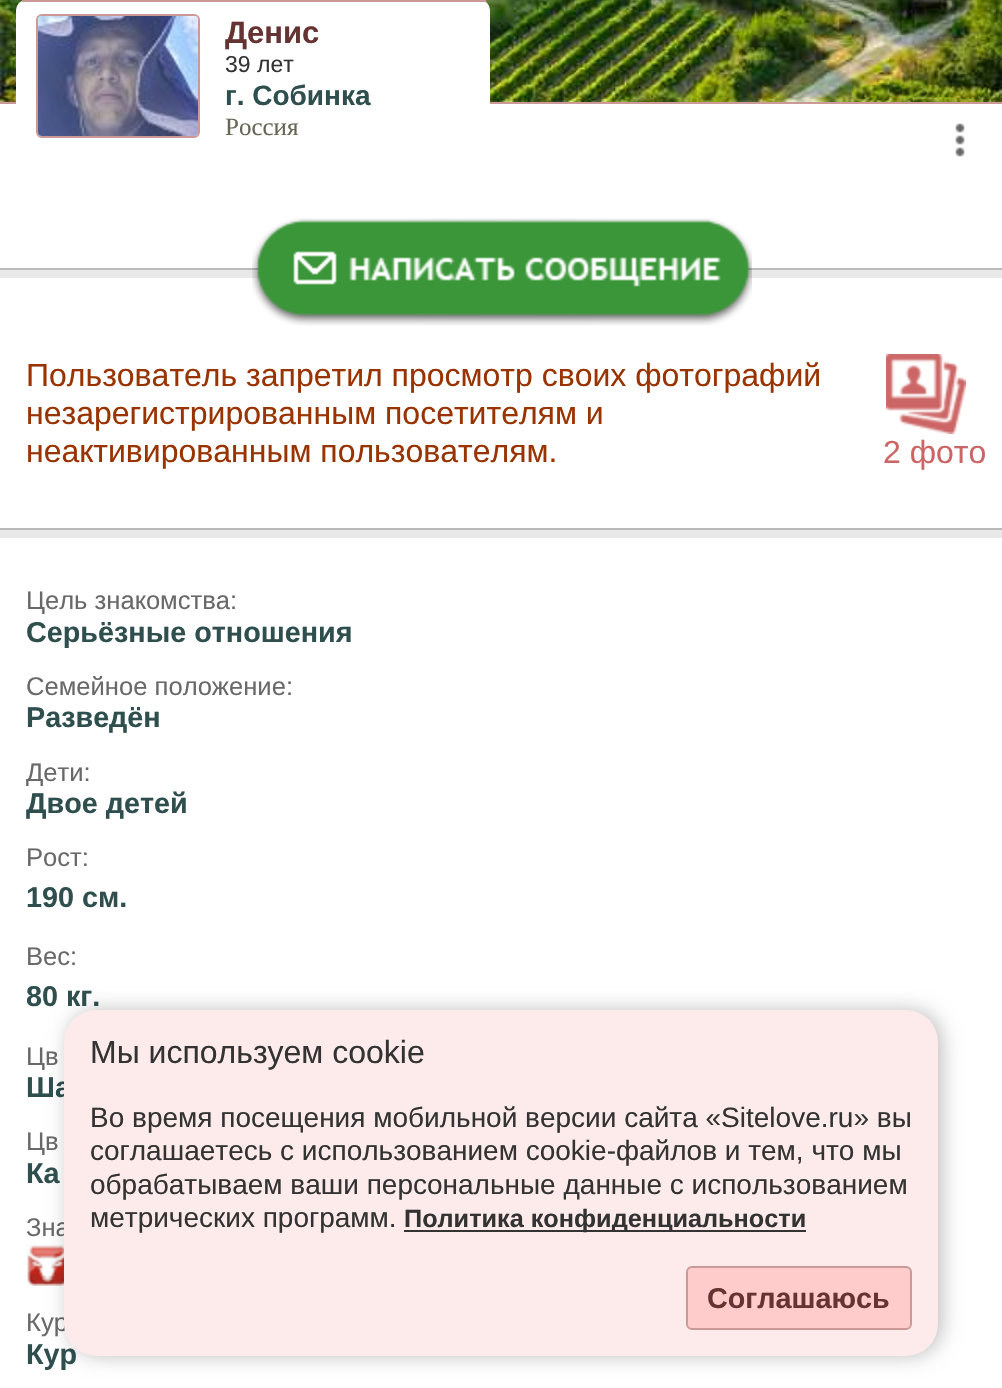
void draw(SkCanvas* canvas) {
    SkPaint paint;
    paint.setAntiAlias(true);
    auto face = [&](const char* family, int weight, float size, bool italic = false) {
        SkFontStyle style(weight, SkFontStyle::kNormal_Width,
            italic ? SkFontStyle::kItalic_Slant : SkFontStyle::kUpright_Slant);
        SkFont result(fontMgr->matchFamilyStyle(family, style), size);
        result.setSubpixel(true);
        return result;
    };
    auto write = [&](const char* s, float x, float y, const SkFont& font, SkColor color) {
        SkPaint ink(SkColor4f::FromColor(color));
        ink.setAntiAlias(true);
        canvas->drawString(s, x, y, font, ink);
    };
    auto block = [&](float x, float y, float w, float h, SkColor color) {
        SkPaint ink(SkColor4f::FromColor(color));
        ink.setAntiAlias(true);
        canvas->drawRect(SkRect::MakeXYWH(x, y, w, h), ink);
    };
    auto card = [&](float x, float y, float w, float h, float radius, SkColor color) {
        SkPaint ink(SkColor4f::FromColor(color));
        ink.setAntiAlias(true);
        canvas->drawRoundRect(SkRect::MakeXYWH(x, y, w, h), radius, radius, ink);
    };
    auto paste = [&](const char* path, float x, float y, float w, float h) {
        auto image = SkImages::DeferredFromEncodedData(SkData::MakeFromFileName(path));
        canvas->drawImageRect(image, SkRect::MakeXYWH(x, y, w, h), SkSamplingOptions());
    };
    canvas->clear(SK_ColorWHITE);
    paste("pic1.png", 0, 0, 1002, 102);
    block(0, 102, 1002, 2, SkColorSetRGB(204, 153, 153));
    paste("pic2.png", 955, 123, 10, 34);
    card(16, 0, 474, 208, 10, SK_ColorWHITE);
    block(22, 0, 464, 2, SkColorSetRGB(204, 153, 153));
    paint.setStyle(SkPaint::kStroke_Style);
    paint.setStrokeWidth(2);
    paint.setColor(SkColorSetRGB(204, 153, 153));
    canvas->drawRoundRect(SkRect::MakeXYWH(37, 15, 162, 122), 5, 5, paint);
    paste("pic3.png", 38, 16, 160, 120);
    auto kFont1 = face("Liberation Sans", 700, 31);
    write("Денис", 225, 43, kFont1, SkColorSetRGB(102, 51, 51));
    auto kFont2 = face("Liberation Sans", 400, 23);
    write("39 лет", 225, 72, kFont2, SkColorSetRGB(51, 51, 51));
    auto kFont3 = face("Liberation Sans", 700, 28);
    write("г. Собинка", 225, 105, kFont3, SkColorSetRGB(47, 79, 79));
    auto kFont4 = face("Liberation Serif", 400, 25);
    write("Россия", 225, 135, kFont4, SkColorSetRGB(102, 102, 85));
    block(0, 270, 1002, 8, SkColorSetRGB(234, 233, 233));
    block(0, 268, 1002, 2, SkColorSetRGB(186, 186, 186));
    paste("pic4.png", 252, 218, 500, 108);
    auto kFont5 = face("Liberation Sans", 400, 32);
    write("Пользователь запретил просмотр своих фотографий", 26, 386, kFont5, SkColorSetRGB(153, 51, 0));
    write("незарегистрированным посетителям и", 26, 424, kFont5, SkColorSetRGB(153, 51, 0));
    write("неактивированным пользователям.", 26, 462, kFont5, SkColorSetRGB(153, 51, 0));
    paste("pic5.png", 886, 354, 80, 80);
    write("2 фото", 883, 463, kFont5, SkColorSetRGB(204, 102, 102));
    block(0, 530, 1002, 8, SkColorSetRGB(234, 233, 233));
    block(0, 528, 1002, 2, SkColorSetRGB(186, 186, 186));
    auto kFont6 = face("Liberation Sans", 400, 25.6f);
    write("Цель знакомства:", 26, 609, kFont6, SkColorSetRGB(105, 105, 105));
    auto kFont7 = face("Liberation Sans", 700, 28.75f);
    write("Серьёзные отношения", 26, 642, kFont7, SkColorSetRGB(47, 79, 79));
    write("Семейное положение:", 26, 695, kFont6, SkColorSetRGB(105, 105, 105));
    write("Разведён", 26, 727, kFont7, SkColorSetRGB(47, 79, 79));
    write("Дети:", 26, 781, kFont6, SkColorSetRGB(105, 105, 105));
    write("Двое детей", 26, 813, kFont7, SkColorSetRGB(47, 79, 79));
    write("Рост:", 26, 866, kFont6, SkColorSetRGB(105, 105, 105));
    write("190 см.", 26, 907, kFont7, SkColorSetRGB(47, 79, 79));
    write("Вес:", 26, 965, kFont6, SkColorSetRGB(105, 105, 105));
    write("80 кг.", 26, 1006, kFont7, SkColorSetRGB(47, 79, 79));
    write("Цв", 26, 1065, kFont6, SkColorSetRGB(105, 105, 105));
    write("Ша", 26, 1097, kFont7, SkColorSetRGB(47, 79, 79));
    write("Цв", 26, 1150, kFont6, SkColorSetRGB(105, 105, 105));
    write("Ка", 26, 1183, kFont7, SkColorSetRGB(47, 79, 79));
    write("Зна", 26, 1236, kFont6, SkColorSetRGB(105, 105, 105));
    paste("pic6.png", 26, 1244, 38, 42);
    write("Кур", 26, 1331, kFont6, SkColorSetRGB(105, 105, 105));
    write("Кур", 26, 1364, kFont7, SkColorSetRGB(47, 79, 79));
    paint.setStyle(SkPaint::kFill_Style);
    paint.setColor(SkColorSetARGB(64, 0, 0, 0));
    paint.setMaskFilter(SkMaskFilter::MakeBlur(kNormal_SkBlurStyle, 10));
    canvas->drawRoundRect(SkRect::MakeXYWH(68, 1010, 874, 346), 32, 32, paint);
    paint.setMaskFilter(nullptr);
    card(64, 1010, 874, 346, 32, SkColorSetRGB(253, 234, 234));
    write("Мы используем сookie", 90, 1063, kFont5, SkColorSetRGB(51, 51, 51));
    auto kFont8 = face("Liberation Sans", 400, 28);
    write("Во время посещения мобильной версии сайта «Sitelove.ru» вы", 90, 1127, kFont8, SkColorSetRGB(51, 51, 51));
    write("соглашаетесь с использованием cookie-файлов и тем, что мы", 90, 1160, kFont8, SkColorSetRGB(51, 51, 51));
    write("обрабатываем ваши персональные данные с использованием", 90, 1194, kFont8, SkColorSetRGB(51, 51, 51));
    write("метрических программ.", 90, 1227, kFont8, SkColorSetRGB(51, 51, 51));
    block(404, 1230, 402, 2, SkColorSetRGB(51, 51, 51));
    auto kFont9 = face("Liberation Sans", 700, 25.25f);
    write("Политика конфиденциальности", 404, 1227, kFont9, SkColorSetRGB(51, 51, 51));
    paint.setColor(SkColorSetRGB(255, 204, 204));
    canvas->drawRoundRect(SkRect::MakeXYWH(687, 1267, 224, 62), 5, 5, paint);
    paint.setStyle(SkPaint::kStroke_Style);
    paint.setColor(SkColorSetRGB(204, 153, 153));
    canvas->drawRoundRect(SkRect::MakeXYWH(687, 1267, 224, 62), 5, 5, paint);
    write("Соглашаюсь", 707, 1308, kFont7, SkColorSetRGB(102, 51, 51));
}
